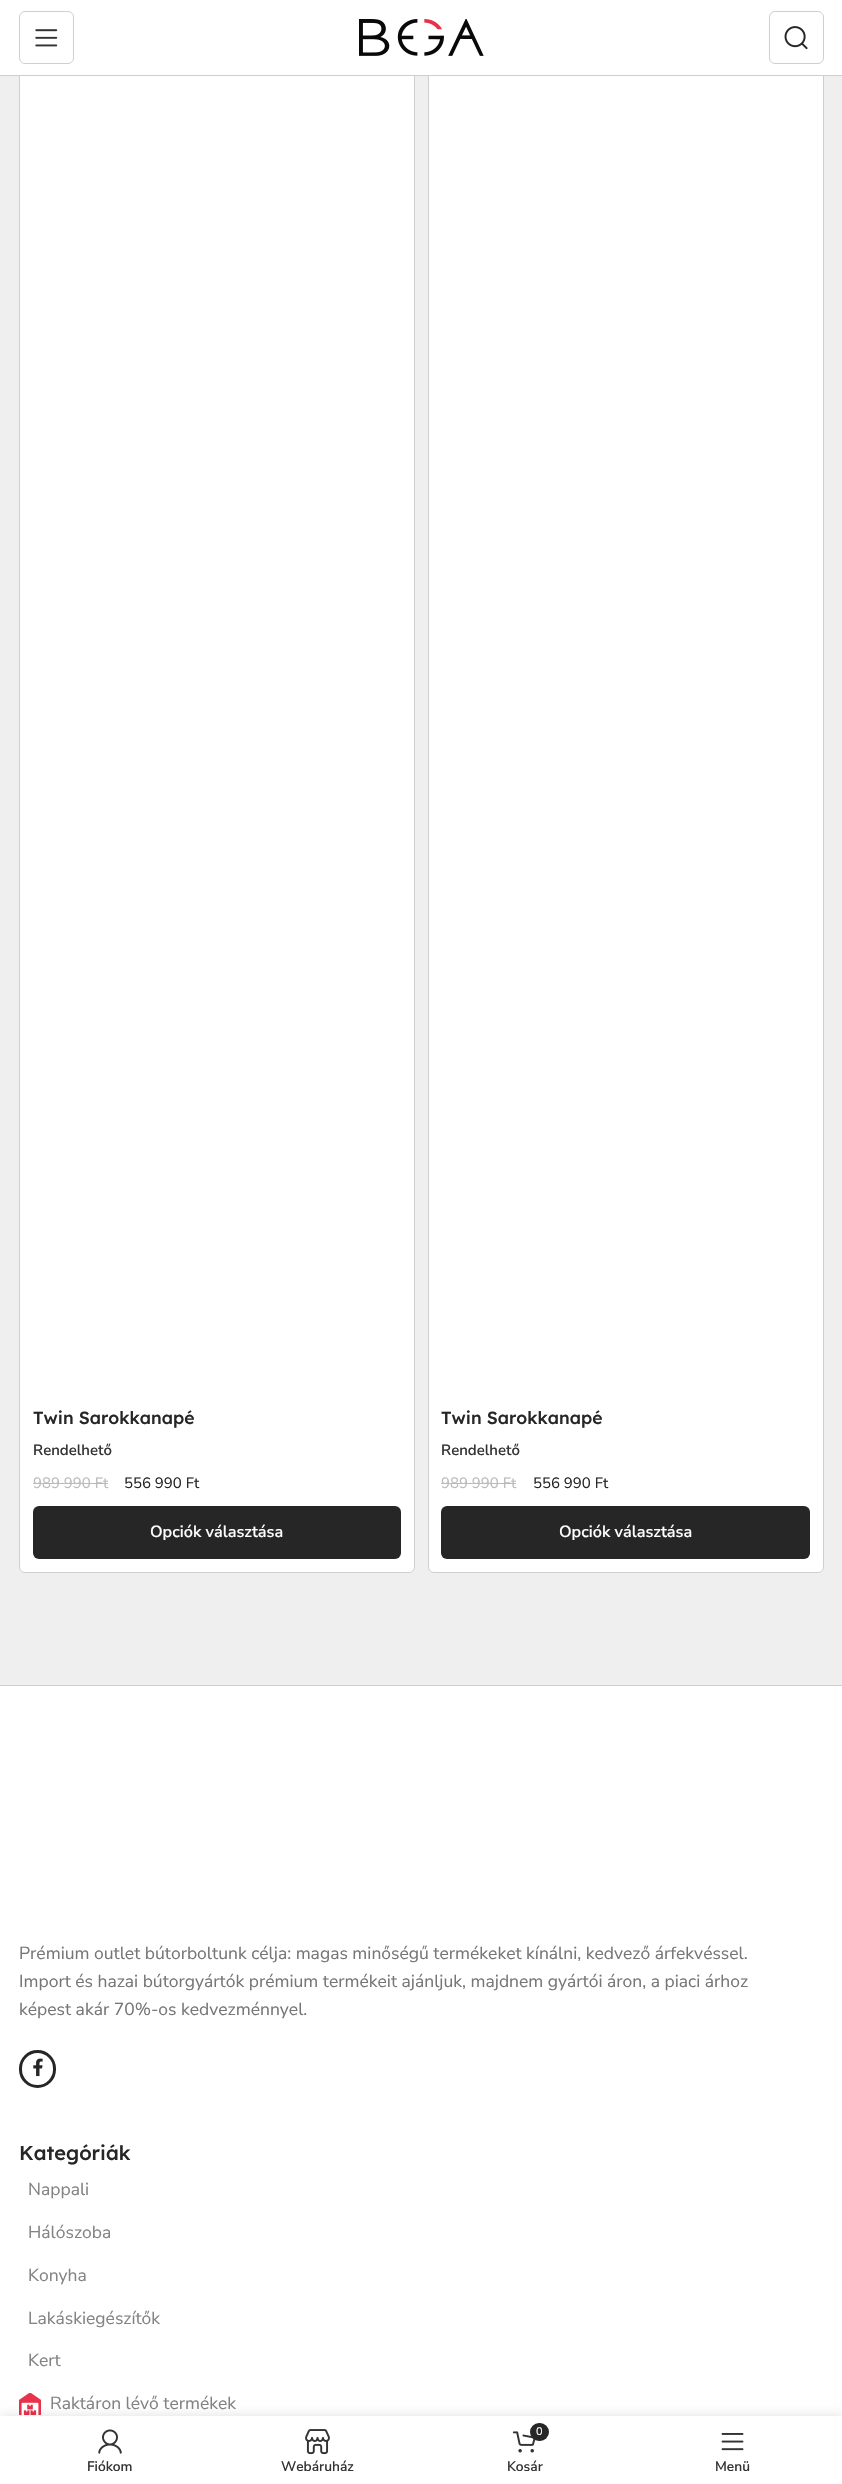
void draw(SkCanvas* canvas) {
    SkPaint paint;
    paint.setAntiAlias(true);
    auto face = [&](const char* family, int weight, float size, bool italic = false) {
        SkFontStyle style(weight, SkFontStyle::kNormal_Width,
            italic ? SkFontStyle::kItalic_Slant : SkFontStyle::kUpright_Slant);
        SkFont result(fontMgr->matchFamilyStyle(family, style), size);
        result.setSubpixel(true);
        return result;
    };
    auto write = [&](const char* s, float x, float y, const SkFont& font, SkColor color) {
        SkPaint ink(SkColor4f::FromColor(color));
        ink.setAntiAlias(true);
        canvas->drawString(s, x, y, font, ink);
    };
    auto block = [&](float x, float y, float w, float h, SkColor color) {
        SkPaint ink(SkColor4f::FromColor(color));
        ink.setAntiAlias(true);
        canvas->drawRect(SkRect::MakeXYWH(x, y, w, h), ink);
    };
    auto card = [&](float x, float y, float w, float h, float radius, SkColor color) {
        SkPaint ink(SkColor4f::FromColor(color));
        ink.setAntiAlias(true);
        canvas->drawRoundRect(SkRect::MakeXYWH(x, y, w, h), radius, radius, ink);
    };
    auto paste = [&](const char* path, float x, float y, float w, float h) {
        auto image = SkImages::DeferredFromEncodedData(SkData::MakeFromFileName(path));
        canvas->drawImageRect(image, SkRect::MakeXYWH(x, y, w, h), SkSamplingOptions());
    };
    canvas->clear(SK_ColorWHITE);
    block(0, 76, 842, 1609, SkColorSetRGB(239, 239, 239));
    paint.setColor(SK_ColorWHITE);
    canvas->drawRoundRect(SkRect::MakeXYWH(19.5f, -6.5f, 395, 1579), 5.5f, 5.5f, paint);
    paint.setStyle(SkPaint::kStroke_Style);
    paint.setStrokeWidth(1);
    paint.setColor(SkColorSetRGB(206, 207, 210));
    canvas->drawRoundRect(SkRect::MakeXYWH(19.5f, -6.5f, 395, 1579), 5.5f, 5.5f, paint);
    paint.setStyle(SkPaint::kFill_Style);
    paint.setColor(SK_ColorWHITE);
    canvas->drawRoundRect(SkRect::MakeXYWH(428.5f, -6.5f, 395, 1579), 5.5f, 5.5f, paint);
    paint.setStyle(SkPaint::kStroke_Style);
    paint.setColor(SkColorSetRGB(206, 207, 210));
    canvas->drawRoundRect(SkRect::MakeXYWH(428.5f, -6.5f, 395, 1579), 5.5f, 5.5f, paint);
    block(19, 0, 805, 75, SK_ColorWHITE);
    block(0, 75, 842, 1, SkColorSetRGB(206, 207, 210));
    canvas->drawRoundRect(SkRect::MakeXYWH(19.5f, 11.5f, 54, 52), 5.5f, 5.5f, paint);
    paste("pic1.png", 35, 29, 23, 18);
    paste("pic2.png", 359, 19, 125, 37);
    canvas->drawRoundRect(SkRect::MakeXYWH(769.5f, 11.5f, 54, 52), 5.5f, 5.5f, paint);
    paste("pic3.png", 784, 26, 24, 24);
    auto kFont1 = face("Lexend Deca", 500, 17.5f);
    write("Twin Sarokkanapé", 33, 1424, kFont1, SkColorSetRGB(39, 38, 38));
    auto kFont2 = face("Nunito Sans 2", 200, 15);
    write("Rendelhető", 33, 1455, kFont2, SkColorSetRGB(51, 51, 51));
    auto kFont3 = face("Nunito Sans", 200, 15);
    write("989 990 Ft", 33, 1488, kFont3, SkColorSetRGB(187, 187, 187));
    block(33, 1483, 75, 1, SkColorSetRGB(187, 187, 187));
    write("556 990 Ft", 124, 1488, kFont3, SkColorSetRGB(39, 38, 38));
    card(33, 1506, 368, 53, 6, SkColorSetRGB(39, 38, 38));
    auto kFont4 = face("Nunito Sans 2", 200, 16.25f);
    write("Opciók választása", 150, 1537, kFont4, SK_ColorWHITE);
    write("Twin Sarokkanapé", 441, 1424, kFont1, SkColorSetRGB(39, 38, 38));
    write("Rendelhető", 441, 1455, kFont2, SkColorSetRGB(51, 51, 51));
    write("989 990 Ft", 441, 1488, kFont3, SkColorSetRGB(187, 187, 187));
    block(441, 1483, 75, 1, SkColorSetRGB(187, 187, 187));
    write("556 990 Ft", 533, 1488, kFont3, SkColorSetRGB(39, 38, 38));
    card(441, 1506, 369, 53, 6, SkColorSetRGB(39, 38, 38));
    write("Opciók választása", 559, 1537, kFont4, SK_ColorWHITE);
    block(0, 1685, 842, 1, SkColorSetRGB(206, 207, 210));
    auto kFont5 = face("Nunito Sans", 200, 17.5f);
    write("Prémium outlet bútorboltunk célja: magas minőségű termékeket kínálni, kedvező árfekvéssel.", 19, 1959, kFont5, SkColorSetRGB(118, 118, 118));
    write("Import és hazai bútorgyártók prémium termékeit ajánljuk, majdnem gyártói áron, a piaci árhoz", 19, 1987, kFont5, SkColorSetRGB(118, 118, 118));
    write("képest akár 70%-os kedvezménnyel.", 19, 2015, kFont5, SkColorSetRGB(118, 118, 118));
    paint.setStrokeWidth(3);
    paint.setColor(SkColorSetRGB(39, 38, 38));
    canvas->drawRoundRect(SkRect::MakeXYWH(20.5f, 2051.5f, 34, 35), 17, 17, paint);
    paste("pic4.png", 33, 2058, 10, 19);
    auto kFont6 = face("Lexend Deca", 500, 20);
    write("Kategóriák", 19, 2160, kFont6, SkColorSetRGB(39, 38, 38));
    write("Nappali", 28, 2195, kFont5, SkColorSetRGB(131, 131, 131));
    write("Hálószoba", 28, 2238, kFont5, SkColorSetRGB(131, 131, 131));
    write("Konyha", 28, 2281, kFont5, SkColorSetRGB(131, 131, 131));
    write("Lakáskiegészítők", 28, 2324, kFont5, SkColorSetRGB(131, 131, 131));
    write("Kert", 28, 2366, kFont5, SkColorSetRGB(131, 131, 131));
    paste("pic5.png", 19, 2393, 22, 22);
    write("Raktáron lévő termékek", 50, 2409, kFont5, SkColorSetRGB(131, 131, 131));
    paint.setStyle(SkPaint::kFill_Style);
    paint.setColor(SkColorSetARGB(31, 0, 0, 0));
    paint.setMaskFilter(SkMaskFilter::MakeBlur(kNormal_SkBlurStyle, 5.5f));
    canvas->drawRect(SkRect::MakeXYWH(0, 2416, 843, 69), paint);
    paint.setMaskFilter(nullptr);
    block(0, 2416, 842, 68, SK_ColorWHITE);
    paste("pic6.png", 98, 2429, 24, 25);
    auto kFont7 = face("Nunito Sans 2", 200, 13.75f);
    write("Fiókom", 87, 2471, kFont7, SkColorSetRGB(51, 51, 51));
    paste("pic7.png", 305, 2429, 25, 26);
    write("Webáruház", 281, 2471, kFont7, SkColorSetRGB(51, 51, 51));
    paste("pic8.png", 512, 2431, 24, 22);
    card(530, 2423, 19, 18, 9, SkColorSetRGB(39, 38, 38));
    auto kFont8 = face("Nunito Sans", 200, 11);
    write("0", 536, 2435, kFont8, SK_ColorWHITE);
    write("Kosár", 507, 2471, kFont7, SkColorSetRGB(51, 51, 51));
    paste("pic9.png", 721, 2433, 23, 18);
    write("Menü", 715, 2471, kFont7, SkColorSetRGB(51, 51, 51));
}
